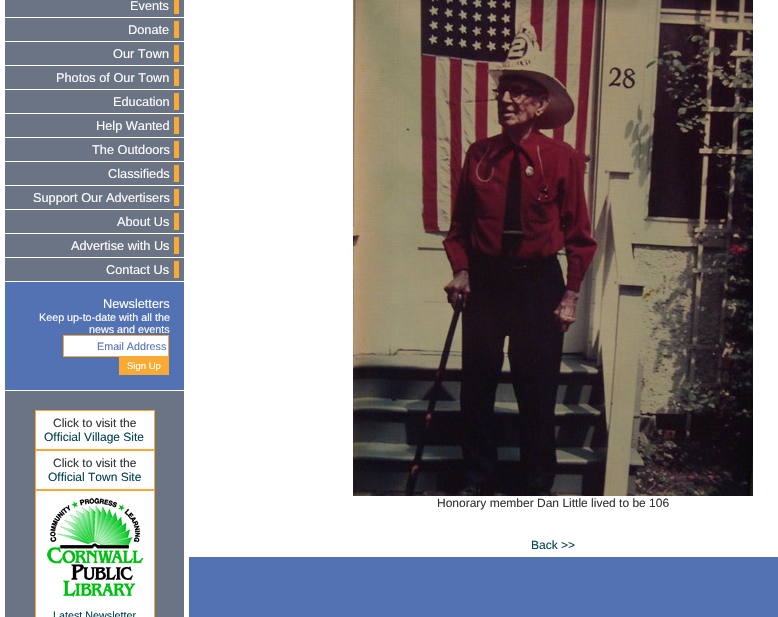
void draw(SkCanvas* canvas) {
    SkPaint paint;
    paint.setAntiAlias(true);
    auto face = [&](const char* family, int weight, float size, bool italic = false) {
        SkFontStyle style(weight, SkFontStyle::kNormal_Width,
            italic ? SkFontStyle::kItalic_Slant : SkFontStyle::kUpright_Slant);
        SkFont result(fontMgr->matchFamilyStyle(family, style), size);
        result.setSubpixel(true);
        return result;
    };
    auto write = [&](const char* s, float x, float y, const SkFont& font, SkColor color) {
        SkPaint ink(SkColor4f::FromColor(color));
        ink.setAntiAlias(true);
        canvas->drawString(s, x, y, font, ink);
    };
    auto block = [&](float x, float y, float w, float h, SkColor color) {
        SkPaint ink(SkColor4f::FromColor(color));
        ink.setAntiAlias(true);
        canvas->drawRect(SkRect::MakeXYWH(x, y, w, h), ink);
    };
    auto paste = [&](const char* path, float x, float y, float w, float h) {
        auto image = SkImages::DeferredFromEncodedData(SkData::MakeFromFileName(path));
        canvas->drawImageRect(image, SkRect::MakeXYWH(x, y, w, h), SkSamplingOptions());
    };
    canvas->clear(SK_ColorWHITE);
    block(5, 0, 179, 617, SkColorSetRGB(106, 116, 132));
    auto kFont1 = face("Liberation Sans", 400, 12.75f);
    write("Events", 130, 10, kFont1, SK_ColorWHITE);
    block(174, 0, 5, 14, SkColorSetRGB(248, 170, 51));
    block(5, 17, 179, 1, SK_ColorWHITE);
    write("Donate", 128, 34, kFont1, SK_ColorWHITE);
    block(174, 21, 5, 17, SkColorSetRGB(248, 170, 51));
    block(5, 41, 179, 1, SK_ColorWHITE);
    write("Our Town", 113, 58, kFont1, SK_ColorWHITE);
    block(174, 45, 5, 17, SkColorSetRGB(248, 170, 51));
    block(5, 65, 179, 1, SK_ColorWHITE);
    write("Photos of Our Town", 56, 82, kFont1, SK_ColorWHITE);
    block(174, 69, 5, 17, SkColorSetRGB(248, 170, 51));
    block(5, 89, 179, 1, SK_ColorWHITE);
    write("Education", 113, 106, kFont1, SK_ColorWHITE);
    block(174, 93, 5, 17, SkColorSetRGB(248, 170, 51));
    block(5, 113, 179, 1, SK_ColorWHITE);
    write("Help Wanted", 96, 130, kFont1, SK_ColorWHITE);
    block(174, 117, 5, 17, SkColorSetRGB(248, 170, 51));
    block(5, 137, 179, 1, SK_ColorWHITE);
    write("The Outdoors", 92, 154, kFont1, SK_ColorWHITE);
    block(174, 141, 5, 17, SkColorSetRGB(248, 170, 51));
    block(5, 161, 179, 1, SK_ColorWHITE);
    write("Classifieds", 108, 178, kFont1, SK_ColorWHITE);
    block(174, 165, 5, 17, SkColorSetRGB(248, 170, 51));
    block(5, 185, 179, 1, SK_ColorWHITE);
    write("Support Our Advertisers", 33, 202, kFont1, SK_ColorWHITE);
    block(174, 189, 5, 17, SkColorSetRGB(248, 170, 51));
    block(5, 209, 179, 1, SK_ColorWHITE);
    write("About Us", 117, 226, kFont1, SK_ColorWHITE);
    block(174, 213, 5, 17, SkColorSetRGB(248, 170, 51));
    block(5, 233, 179, 1, SK_ColorWHITE);
    write("Advertise with Us", 71, 250, kFont1, SK_ColorWHITE);
    block(174, 237, 5, 17, SkColorSetRGB(248, 170, 51));
    block(5, 257, 179, 1, SK_ColorWHITE);
    write("Contact Us", 106, 274, kFont1, SK_ColorWHITE);
    block(174, 261, 5, 17, SkColorSetRGB(248, 170, 51));
    block(5, 281, 179, 1, SK_ColorWHITE);
    block(5, 282, 179, 108, SkColorSetRGB(82, 114, 180));
    write("Newsletters", 103, 308, kFont1, SK_ColorWHITE);
    auto kFont2 = face("Liberation Sans", 400, 10.75f);
    write("Keep up-to-date with all the", 39, 321, kFont2, SK_ColorWHITE);
    write("news and events", 89, 333, kFont2, SK_ColorWHITE);
    paint.setColor(SK_ColorWHITE);
    canvas->drawRect(SkRect::MakeXYWH(63.5f, 335.5f, 105, 21), paint);
    paint.setStyle(SkPaint::kStroke_Style);
    paint.setStrokeWidth(1);
    paint.setColor(SkColorSetRGB(248, 170, 51));
    canvas->drawRect(SkRect::MakeXYWH(63.5f, 335.5f, 105, 21), paint);
    write("Email Address", 97, 350, kFont2, SkColorSetRGB(82, 114, 180));
    block(119, 357, 50, 18, SkColorSetRGB(248, 170, 51));
    auto kFont3 = face("Liberation Sans", 400, 9.5f);
    write("Sign Up", 127, 369, kFont3, SK_ColorWHITE);
    block(5, 390, 179, 1, SK_ColorWHITE);
    block(35, 410, 120, 207, SkColorSetRGB(254, 166, 53));
    block(36, 411, 118, 38, SK_ColorWHITE);
    auto kFont4 = face("Liberation Sans", 400, 12);
    write("Click to visit the", 53, 427, kFont4, SkColorSetRGB(51, 51, 51));
    write("Official Village Site", 44, 441, kFont4, SkColorSetRGB(4, 66, 84));
    block(36, 451, 118, 38, SK_ColorWHITE);
    write("Click to visit the", 53, 467, kFont4, SkColorSetRGB(51, 51, 51));
    write("Official Town Site", 48, 481, kFont4, SkColorSetRGB(4, 66, 84));
    block(36, 491, 118, 126, SK_ColorWHITE);
    paste("pic1.png", 47, 498, 96, 99);
    write("Latest Newsletter", 53, 619, kFont2, SkColorSetRGB(4, 66, 84));
    paste("pic2.png", 353, 0, 400, 496);
    write("Honorary member Dan Little lived to be 106", 437, 507, kFont4, SkColorSetRGB(51, 51, 51));
    write("Back >>", 531, 549, kFont4, SkColorSetRGB(4, 66, 84));
    block(189, 557, 589, 60, SkColorSetRGB(82, 114, 180));
}
